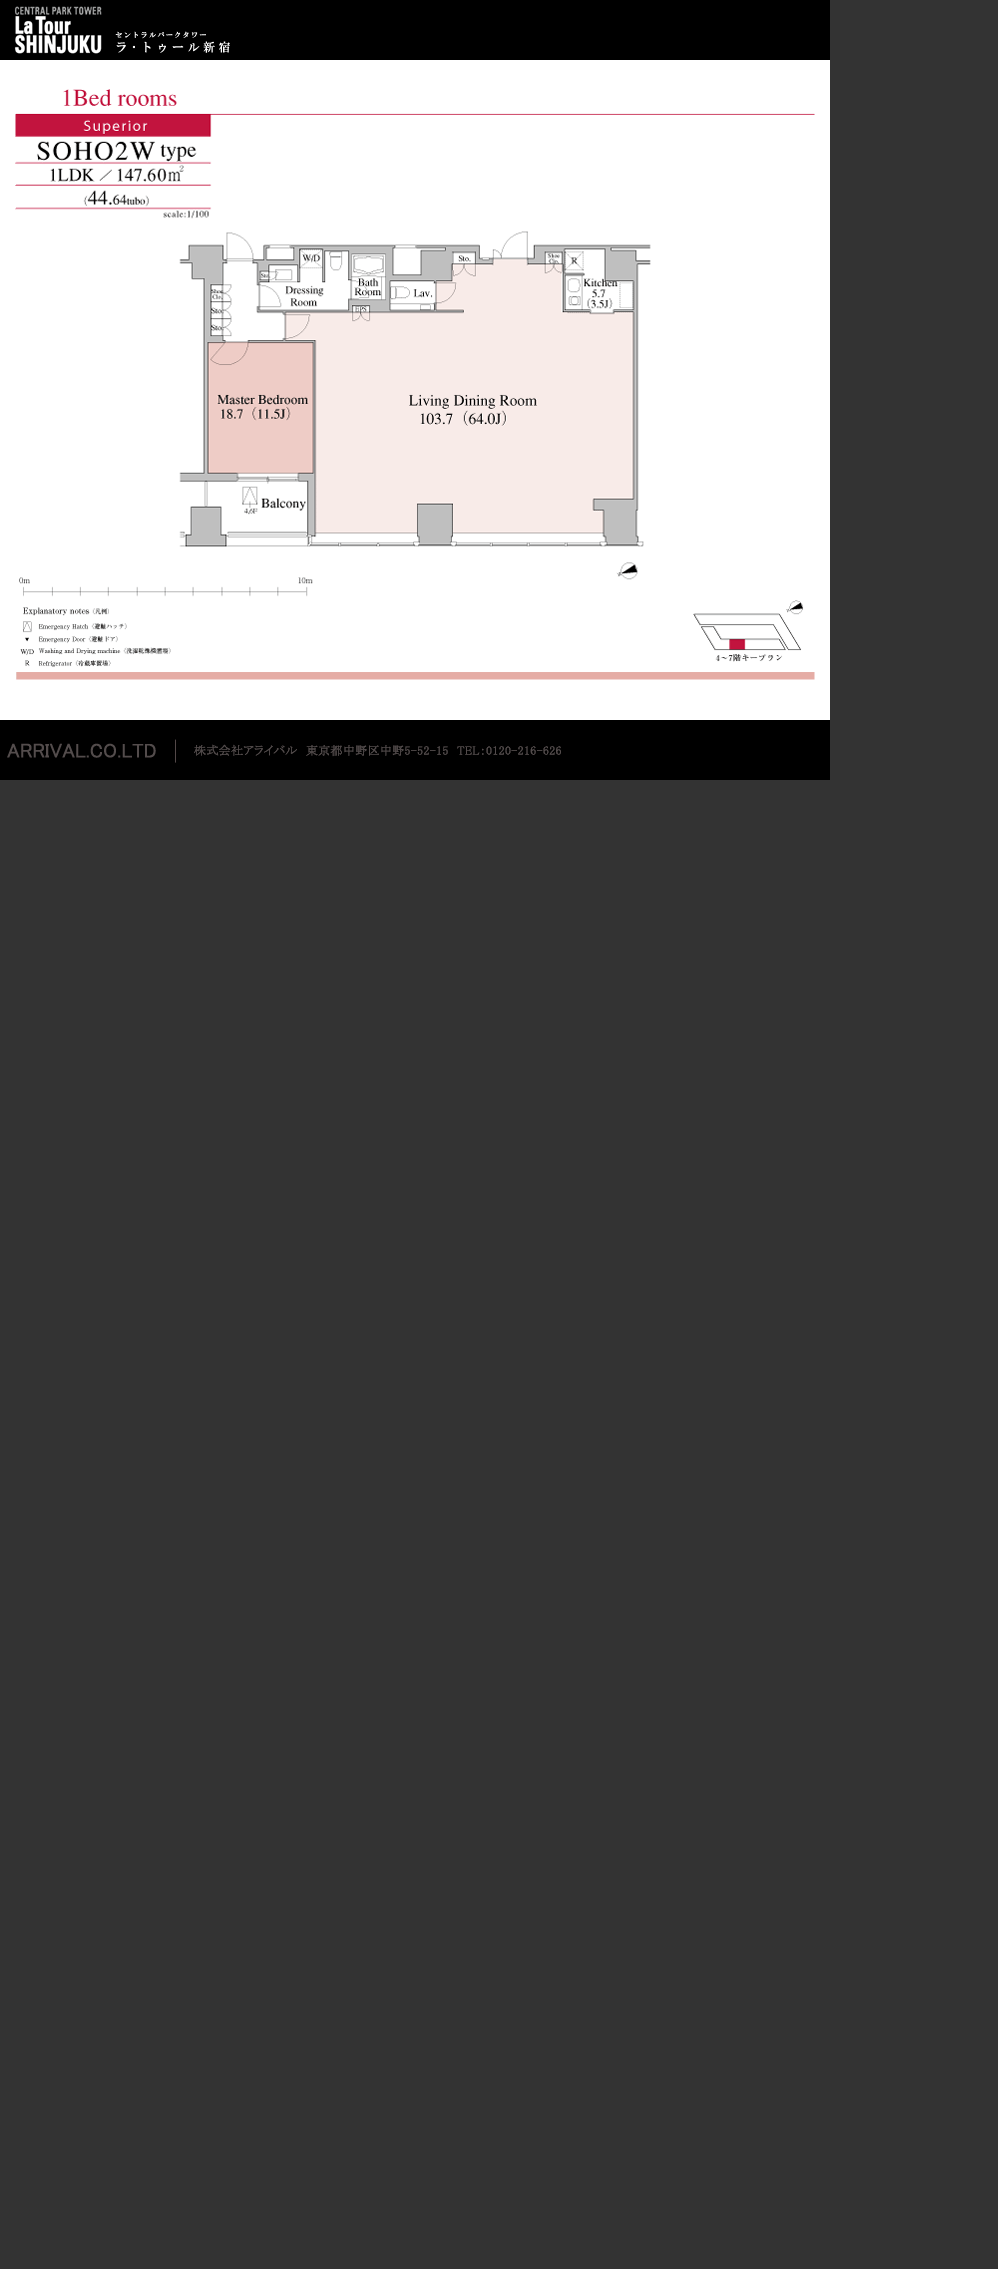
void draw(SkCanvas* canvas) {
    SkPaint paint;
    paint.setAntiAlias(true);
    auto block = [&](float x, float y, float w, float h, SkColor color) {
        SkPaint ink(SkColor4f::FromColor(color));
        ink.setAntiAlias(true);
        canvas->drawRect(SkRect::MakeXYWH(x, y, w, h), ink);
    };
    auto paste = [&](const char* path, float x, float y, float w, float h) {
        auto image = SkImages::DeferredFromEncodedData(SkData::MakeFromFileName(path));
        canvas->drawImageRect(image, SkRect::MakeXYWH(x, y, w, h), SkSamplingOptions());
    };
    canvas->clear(SkColorSetRGB(51, 51, 51));
    block(0, 0, 830, 60, SK_ColorBLACK);
    paste("pic1.png", 14, 6, 216, 48);
    block(0, 60, 830, 660, SK_ColorWHITE);
    paste("pic2.png", 15, 89, 800, 591);
    block(0, 720, 830, 60, SK_ColorBLACK);
    paste("pic3.png", 7, 739, 554, 24);
}
